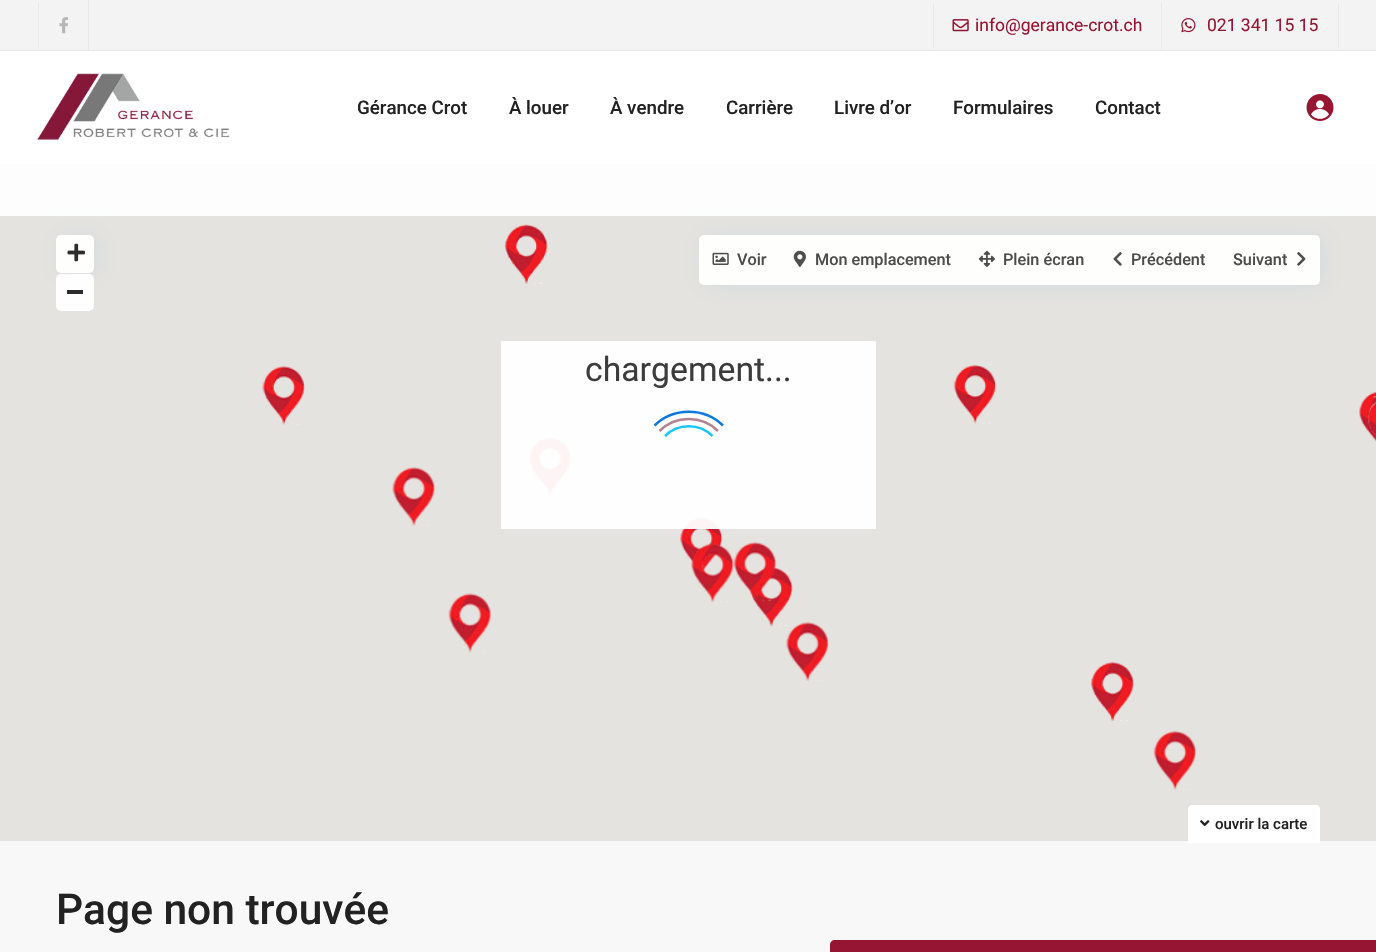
void draw(SkCanvas* canvas) {
    SkPaint paint;
    paint.setAntiAlias(true);
    auto face = [&](const char* family, int weight, float size, bool italic = false) {
        SkFontStyle style(weight, SkFontStyle::kNormal_Width,
            italic ? SkFontStyle::kItalic_Slant : SkFontStyle::kUpright_Slant);
        SkFont result(fontMgr->matchFamilyStyle(family, style), size);
        result.setSubpixel(true);
        return result;
    };
    auto write = [&](const char* s, float x, float y, const SkFont& font, SkColor color) {
        SkPaint ink(SkColor4f::FromColor(color));
        ink.setAntiAlias(true);
        canvas->drawString(s, x, y, font, ink);
    };
    auto block = [&](float x, float y, float w, float h, SkColor color) {
        SkPaint ink(SkColor4f::FromColor(color));
        ink.setAntiAlias(true);
        canvas->drawRect(SkRect::MakeXYWH(x, y, w, h), ink);
    };
    auto card = [&](float x, float y, float w, float h, float radius, SkColor color) {
        SkPaint ink(SkColor4f::FromColor(color));
        ink.setAntiAlias(true);
        canvas->drawRoundRect(SkRect::MakeXYWH(x, y, w, h), radius, radius, ink);
    };
    auto paste = [&](const char* path, float x, float y, float w, float h) {
        auto image = SkImages::DeferredFromEncodedData(SkData::MakeFromFileName(path));
        canvas->drawImageRect(image, SkRect::MakeXYWH(x, y, w, h), SkSamplingOptions());
    };
    canvas->clear(SkColorSetRGB(248, 248, 248));
    block(0, 51, 1376, 113, SK_ColorWHITE);
    block(0, 0, 1376, 50, SkColorSetRGB(243, 243, 243));
    block(0, 50, 1376, 1, SkColorSetRGB(232, 232, 232));
    block(38, 3, 1, 45, SkColorSetRGB(232, 232, 232));
    block(88, 0, 1, 50, SkColorSetRGB(232, 232, 232));
    paste("pic1.png", 59, 17, 10, 17);
    block(933, 3, 1, 46, SkColorSetRGB(232, 232, 232));
    paste("pic2.png", 952, 19, 17, 13);
    auto kFont1 = face("Roboto", 400, 17.5f);
    write("info@gerance-crot.ch", 975, 31, kFont1, SkColorSetRGB(150, 21, 51));
    block(1338, 3, 1, 46, SkColorSetRGB(232, 232, 232));
    block(1161, 3, 1, 46, SkColorSetRGB(232, 232, 232));
    paste("pic3.png", 1181, 18, 15, 15);
    write("021 341 15 15", 1207, 31, kFont1, SkColorSetRGB(150, 21, 51));
    paste("pic4.png", 37, 73, 193, 67);
    auto kFont2 = face("Roboto", 500, 18.75f);
    write("Gérance Crot", 357, 114, kFont2, SkColorSetRGB(34, 34, 34));
    write("À louer", 509, 114, kFont2, SkColorSetRGB(34, 34, 34));
    write("À vendre", 610, 114, kFont2, SkColorSetRGB(34, 34, 34));
    write("Carrière", 726, 114, kFont2, SkColorSetRGB(34, 34, 34));
    write("Livre d’or", 834, 114, kFont2, SkColorSetRGB(34, 34, 34));
    write("Formulaires", 953, 114, kFont2, SkColorSetRGB(34, 34, 34));
    write("Contact", 1095, 114, kFont2, SkColorSetRGB(34, 34, 34));
    paste("pic5.png", 1306, 94, 28, 27);
    block(0, 164, 1376, 52, SkColorSetRGB(253, 253, 253));
    block(0, 216, 1376, 625, SkColorSetRGB(229, 227, 223));
    paste("pic6.png", 505, 224, 43, 60);
    paste("pic7.png", 505, 224, 43, 60);
    paste("pic8.png", 262, 365, 43, 60);
    paste("pic9.png", 953, 364, 44, 60);
    paste("pic10.png", 1359, 390, 17, 52);
    paste("pic11.png", 1368, 396, 8, 40);
    paste("pic12.png", 1368, 396, 8, 40);
    paste("pic13.png", 1368, 396, 8, 40);
    paste("pic14.png", 392, 467, 44, 59);
    paste("pic15.png", 528, 436, 44, 61);
    paste("pic16.png", 680, 517, 43, 60);
    paste("pic18.png", 691, 543, 43, 60);
    paste("pic16.png", 750, 567, 43, 60);
    paste("pic20.png", 750, 567, 43, 60);
    paste("pic17.png", 733, 542, 44, 60);
    paste("pic19.png", 448, 593, 44, 60);
    paste("pic21.png", 785, 622, 44, 59);
    paste("pic22.png", 1091, 662, 43, 59);
    paste("pic23.png", 1091, 662, 43, 59);
    paste("pic24.png", 1153, 730, 44, 60);
    block(501, 341, 375, 188, SkColorSetARGB(242, 255, 255, 255));
    auto kFont3 = face("Roboto", 400, 33.75f);
    write("chargement...", 585, 381, kFont3, SkColorSetRGB(60, 60, 60));
    paint.setStyle(SkPaint::kStroke_Style);
    paint.setStrokeWidth(2.5f);
    paint.setColor(SkColorSetRGB(11, 121, 225));
    canvas->drawPath(SkPathBuilder().moveTo(654.5f, 425.5f).cubicTo(673, 407, 704.5f, 407, 723, 425.5f).detach(), paint);
    paint.setColor(SkColorSetRGB(179, 130, 144));
    canvas->drawPath(SkPathBuilder().moveTo(659.5f, 431).cubicTo(675.5f, 415, 702, 415, 718, 431).detach(), paint);
    paint.setColor(SkColorSetRGB(24, 197, 247));
    canvas->drawPath(SkPathBuilder().moveTo(665, 436).cubicTo(678, 423, 699.5f, 423, 712.5f, 436).detach(), paint);
    paint.setStyle(SkPaint::kFill_Style);
    paint.setColor(SkColorSetARGB(20, 0, 110, 225));
    paint.setMaskFilter(SkMaskFilter::MakeBlur(kNormal_SkBlurStyle, 12.5f));
    canvas->drawRoundRect(SkRect::MakeXYWH(60, 236, 38, 38), 5, 5, paint);
    paint.setMaskFilter(nullptr);
    card(56, 235, 38, 38, 5, SkColorSetRGB(254, 254, 253));
    paste("pic25.png", 67, 243, 18, 19);
    paint.setMaskFilter(SkMaskFilter::MakeBlur(kNormal_SkBlurStyle, 12.5f));
    canvas->drawRoundRect(SkRect::MakeXYWH(703, 236, 621, 50), 5, 5, paint);
    paint.setMaskFilter(nullptr);
    card(699, 235, 621, 50, 5, SkColorSetRGB(254, 254, 253));
    paste("pic26.png", 712, 252, 17, 13);
    auto kFont4 = face("Roboto", 500, 16.25f);
    write("Voir", 737, 265, kFont4, SkColorSetRGB(76, 76, 76));
    paste("pic27.png", 793, 250, 13, 17);
    write("Mon emplacement", 815, 265, kFont4, SkColorSetRGB(76, 76, 76));
    paste("pic28.png", 978, 250, 17, 17);
    write("Plein écran", 1003, 265, kFont4, SkColorSetRGB(76, 76, 76));
    paste("pic29.png", 1113, 252, 9, 14);
    write("Précédent", 1131, 265, kFont4, SkColorSetRGB(76, 76, 76));
    write("Suivant", 1233, 265, kFont4, SkColorSetRGB(76, 76, 76));
    paste("pic30.png", 1297, 252, 9, 14);
    card(56, 274, 38, 37, 5, SkColorSetARGB(242, 255, 255, 255));
    block(67, 290, 16, 4, SkColorSetRGB(45, 45, 45));
    paint.setColor(SK_ColorWHITE);
    canvas->drawPath(SkPathBuilder().moveTo(1192, 805).lineTo(1316, 805).cubicTo(1318, 805, 1320, 807, 1320, 809).lineTo(1320, 843).lineTo(1188, 843).lineTo(1188, 809).cubicTo(1188, 807, 1190, 805, 1192, 805).close().detach(), paint);
    paste("pic31.png", 1200, 820, 10, 7);
    auto kFont5 = face("Roboto", 500, 15);
    write("ouvrir la carte", 1215, 829, kFont5, SkColorSetRGB(34, 34, 34));
    paint.setColor(SkColorSetRGB(150, 21, 51));
    canvas->drawPath(SkPathBuilder().moveTo(835, 940).lineTo(1376, 940).lineTo(1376, 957).lineTo(835, 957).cubicTo(832, 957, 830, 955, 830, 952).lineTo(830, 945).cubicTo(830, 942, 832, 940, 835, 940).close().detach(), paint);
    auto kFont6 = face("Roboto", 500, 42.5f);
    write("Page non trouvée", 56, 924, kFont6, SkColorSetRGB(34, 34, 34));
}
